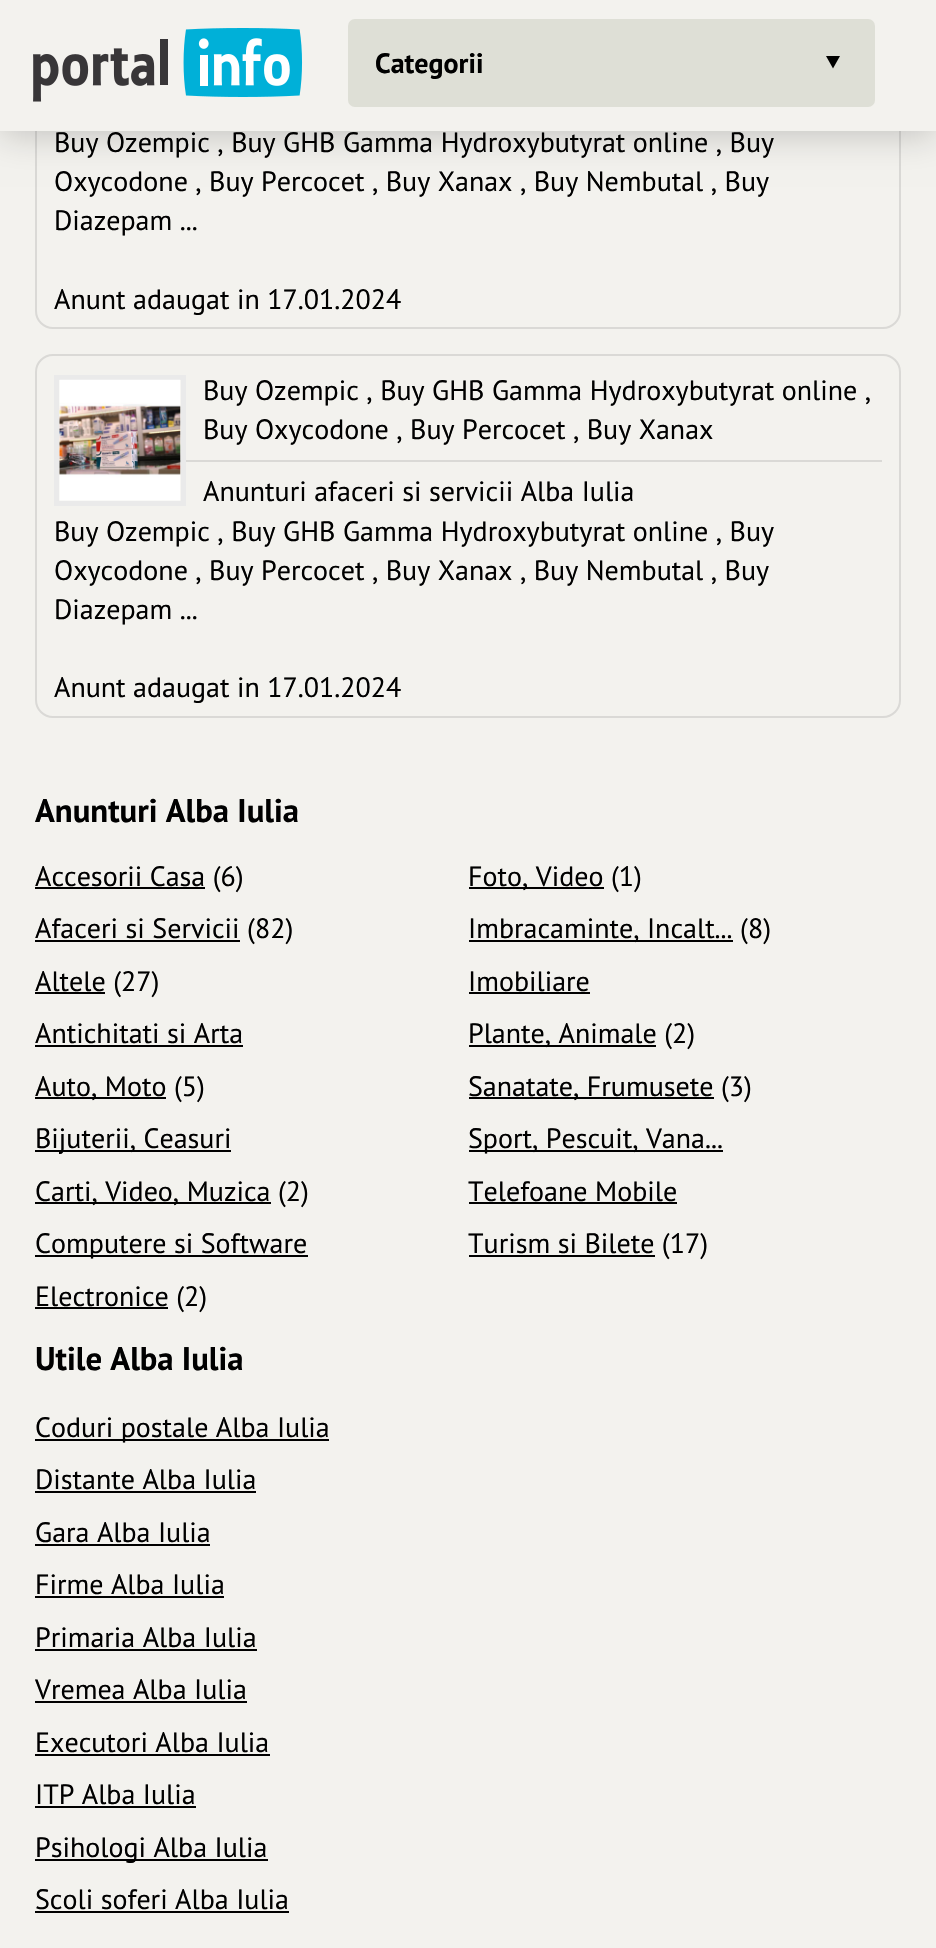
void draw(SkCanvas* canvas) {
    SkPaint paint;
    paint.setAntiAlias(true);
    auto face = [&](const char* family, int weight, float size, bool italic = false) {
        SkFontStyle style(weight, SkFontStyle::kNormal_Width,
            italic ? SkFontStyle::kItalic_Slant : SkFontStyle::kUpright_Slant);
        SkFont result(fontMgr->matchFamilyStyle(family, style), size);
        result.setSubpixel(true);
        return result;
    };
    auto write = [&](const char* s, float x, float y, const SkFont& font, SkColor color) {
        SkPaint ink(SkColor4f::FromColor(color));
        ink.setAntiAlias(true);
        canvas->drawString(s, x, y, font, ink);
    };
    auto block = [&](float x, float y, float w, float h, SkColor color) {
        SkPaint ink(SkColor4f::FromColor(color));
        ink.setAntiAlias(true);
        canvas->drawRect(SkRect::MakeXYWH(x, y, w, h), ink);
    };
    auto card = [&](float x, float y, float w, float h, float radius, SkColor color) {
        SkPaint ink(SkColor4f::FromColor(color));
        ink.setAntiAlias(true);
        canvas->drawRoundRect(SkRect::MakeXYWH(x, y, w, h), radius, radius, ink);
    };
    auto paste = [&](const char* path, float x, float y, float w, float h) {
        auto image = SkImages::DeferredFromEncodedData(SkData::MakeFromFileName(path));
        canvas->drawImageRect(image, SkRect::MakeXYWH(x, y, w, h), SkSamplingOptions());
    };
    canvas->clear(SkColorSetRGB(243, 242, 238));
    paint.setStyle(SkPaint::kStroke_Style);
    paint.setStrokeWidth(2);
    paint.setColor(SkColorSetRGB(218, 217, 214));
    canvas->drawRoundRect(SkRect::MakeXYWH(36, -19, 864, 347), 17, 17, paint);
    paint.setStyle(SkPaint::kFill_Style);
    paint.setColor(SkColorSetARGB(51, 0, 0, 0));
    paint.setMaskFilter(SkMaskFilter::MakeBlur(kNormal_SkBlurStyle, 17.5f));
    canvas->drawRect(SkRect::MakeXYWH(0, 4, 936, 131), paint);
    paint.setMaskFilter(nullptr);
    block(0, 0, 936, 131, SkColorSetRGB(243, 242, 238));
    paste("pic1.png", 33, 28, 270, 74);
    card(348, 19, 527, 88, 7, SkColorSetRGB(222, 223, 214));
    paint.setColor(SK_ColorBLACK);
    canvas->drawPath(SkPathBuilder().moveTo(826, 56).lineTo(840, 56).lineTo(833, 68.5f).close().detach(), paint);
    auto kFont1 = face("PT Sans", 700, 28);
    write("Categorii", 375, 73, kFont1, SK_ColorBLACK);
    auto kFont2 = face("PT Sans", 400, 28);
    write("Buy Ozempic , Buy GHB Gamma Hydroxybutyrat online , Buy", 54, 152, kFont2, SK_ColorBLACK);
    write("Oxycodone , Buy Percocet , Buy Xanax , Buy Nembutal , Buy", 54, 191, kFont2, SK_ColorBLACK);
    write("Diazepam ...", 54, 230, kFont2, SK_ColorBLACK);
    write("Anunt adaugat in 17.01.2024", 54, 309, kFont2, SK_ColorBLACK);
    paint.setStyle(SkPaint::kStroke_Style);
    paint.setColor(SkColorSetRGB(218, 217, 214));
    canvas->drawRoundRect(SkRect::MakeXYWH(36, 355, 864, 362), 17, 17, paint);
    block(54, 460, 828, 2, SkColorSetRGB(218, 217, 214));
    paint.setStrokeWidth(5);
    paint.setColor(SkColorSetRGB(234, 234, 234));
    canvas->drawRect(SkRect::MakeXYWH(56.5f, 377.5f, 127, 126), paint);
    paste("pic2.png", 59, 379, 122, 122);
    write("Buy Ozempic , Buy GHB Gamma Hydroxybutyrat online ,", 203, 400, kFont2, SK_ColorBLACK);
    write("Buy Oxycodone , Buy Percocet , Buy Xanax", 203, 439, kFont2, SK_ColorBLACK);
    write("Anunturi afaceri si servicii Alba Iulia", 203, 501, kFont2, SK_ColorBLACK);
    write("Buy Ozempic , Buy GHB Gamma Hydroxybutyrat online , Buy", 54, 541, kFont2, SK_ColorBLACK);
    write("Oxycodone , Buy Percocet , Buy Xanax , Buy Nembutal , Buy", 54, 580, kFont2, SK_ColorBLACK);
    write("Diazepam ...", 54, 619, kFont2, SK_ColorBLACK);
    write("Anunt adaugat in 17.01.2024", 54, 697, kFont2, SK_ColorBLACK);
    auto kFont3 = face("PT Sans", 700, 32.75f);
    write("Anunturi Alba Iulia", 35, 822, kFont3, SK_ColorBLACK);
    block(35, 887, 170, 2, SK_ColorBLACK);
    write("Accesorii Casa (6)", 35, 886, kFont2, SK_ColorBLACK);
    block(35, 940, 205, 2, SK_ColorBLACK);
    write("Afaceri si Servicii (82)", 35, 938, kFont2, SK_ColorBLACK);
    block(35, 992, 70, 2, SK_ColorBLACK);
    write("Altele (27)", 35, 991, kFont2, SK_ColorBLACK);
    write("Antichitati si Arta", 35, 1043, kFont2, SK_ColorBLACK);
    block(35, 1045, 208, 2, SK_ColorBLACK);
    block(35, 1097, 131, 2, SK_ColorBLACK);
    write("Auto, Moto (5)", 35, 1096, kFont2, SK_ColorBLACK);
    block(35, 1150, 196, 2, SK_ColorBLACK);
    write("Bijuterii, Ceasuri", 35, 1148, kFont2, SK_ColorBLACK);
    block(35, 1202, 236, 2, SK_ColorBLACK);
    write("Carti, Video, Muzica (2)", 35, 1201, kFont2, SK_ColorBLACK);
    block(35, 1255, 273, 2, SK_ColorBLACK);
    write("Computere si Software", 35, 1253, kFont2, SK_ColorBLACK);
    block(35, 1307, 133, 2, SK_ColorBLACK);
    write("Electronice (2)", 35, 1306, kFont2, SK_ColorBLACK);
    block(469, 887, 135, 2, SK_ColorBLACK);
    write("Foto, Video (1)", 468, 886, kFont2, SK_ColorBLACK);
    block(469, 940, 264, 2, SK_ColorBLACK);
    write("Imbracaminte, Incalt... (8)", 468, 938, kFont2, SK_ColorBLACK);
    write("Imobiliare", 468, 991, kFont2, SK_ColorBLACK);
    block(469, 992, 121, 2, SK_ColorBLACK);
    block(469, 1045, 187, 2, SK_ColorBLACK);
    write("Plante, Animale (2)", 468, 1043, kFont2, SK_ColorBLACK);
    block(469, 1097, 245, 2, SK_ColorBLACK);
    write("Sanatate, Frumusete (3)", 468, 1096, kFont2, SK_ColorBLACK);
    block(469, 1150, 254, 2, SK_ColorBLACK);
    write("Sport, Pescuit, Vana...", 468, 1148, kFont2, SK_ColorBLACK);
    write("Telefoane Mobile", 468, 1201, kFont2, SK_ColorBLACK);
    block(469, 1202, 208, 2, SK_ColorBLACK);
    block(469, 1255, 186, 2, SK_ColorBLACK);
    write("Turism si Bilete (17)", 468, 1253, kFont2, SK_ColorBLACK);
    write("Utile Alba Iulia", 35, 1370, kFont3, SK_ColorBLACK);
    block(35, 1439, 294, 2, SK_ColorBLACK);
    write("Coduri postale Alba Iulia", 35, 1437, kFont2, SK_ColorBLACK);
    write("Distante Alba Iulia", 35, 1489, kFont2, SK_ColorBLACK);
    block(35, 1491, 221, 2, SK_ColorBLACK);
    write("Gara Alba Iulia", 35, 1542, kFont2, SK_ColorBLACK);
    block(35, 1544, 175, 2, SK_ColorBLACK);
    write("Firme Alba Iulia", 35, 1594, kFont2, SK_ColorBLACK);
    block(35, 1596, 189, 2, SK_ColorBLACK);
    write("Primaria Alba Iulia", 35, 1647, kFont2, SK_ColorBLACK);
    block(35, 1649, 222, 2, SK_ColorBLACK);
    write("Vremea Alba Iulia", 35, 1699, kFont2, SK_ColorBLACK);
    block(35, 1701, 212, 2, SK_ColorBLACK);
    write("Executori Alba Iulia", 35, 1752, kFont2, SK_ColorBLACK);
    block(35, 1754, 235, 2, SK_ColorBLACK);
    write("ITP Alba Iulia", 35, 1804, kFont2, SK_ColorBLACK);
    block(35, 1806, 161, 2, SK_ColorBLACK);
    block(35, 1859, 233, 2, SK_ColorBLACK);
    write("Psihologi Alba Iulia", 35, 1857, kFont2, SK_ColorBLACK);
    write("Scoli soferi Alba Iulia", 35, 1909, kFont2, SK_ColorBLACK);
    block(35, 1911, 254, 2, SK_ColorBLACK);
}
